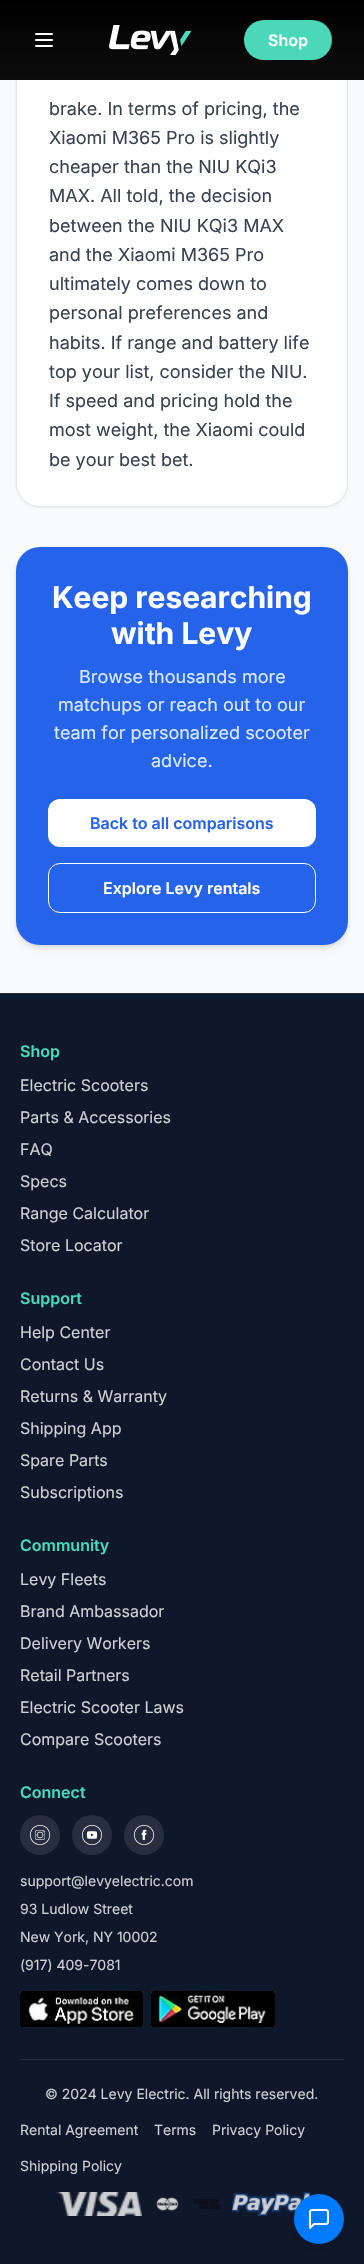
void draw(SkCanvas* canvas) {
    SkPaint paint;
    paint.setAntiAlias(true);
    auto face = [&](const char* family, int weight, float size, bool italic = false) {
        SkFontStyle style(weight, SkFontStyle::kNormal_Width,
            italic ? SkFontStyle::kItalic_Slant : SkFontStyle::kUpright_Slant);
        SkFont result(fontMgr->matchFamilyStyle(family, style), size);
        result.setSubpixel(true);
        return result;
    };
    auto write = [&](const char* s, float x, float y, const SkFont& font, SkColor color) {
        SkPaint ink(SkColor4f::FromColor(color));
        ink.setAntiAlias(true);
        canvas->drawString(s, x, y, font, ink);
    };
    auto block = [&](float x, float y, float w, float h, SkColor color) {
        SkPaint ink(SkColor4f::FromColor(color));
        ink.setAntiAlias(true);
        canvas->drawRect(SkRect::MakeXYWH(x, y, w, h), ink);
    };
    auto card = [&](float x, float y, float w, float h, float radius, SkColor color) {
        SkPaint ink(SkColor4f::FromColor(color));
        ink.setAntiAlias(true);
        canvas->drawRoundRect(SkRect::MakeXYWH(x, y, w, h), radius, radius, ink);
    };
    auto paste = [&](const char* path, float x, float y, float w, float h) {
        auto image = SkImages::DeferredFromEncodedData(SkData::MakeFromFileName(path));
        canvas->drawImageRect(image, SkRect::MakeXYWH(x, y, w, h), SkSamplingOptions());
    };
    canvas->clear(SkColorSetRGB(249, 250, 251));
    paint.setColor(SkColorSetARGB(13, 0, 0, 0));
    paint.setMaskFilter(SkMaskFilter::MakeBlur(kNormal_SkBlurStyle, 1));
    canvas->drawRoundRect(SkRect::MakeXYWH(16, -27, 332, 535), 24, 24, paint);
    paint.setMaskFilter(nullptr);
    paint.setColor(SK_ColorWHITE);
    canvas->drawRoundRect(SkRect::MakeXYWH(16.5f, -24.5f, 331, 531), 23.5f, 23.5f, paint);
    paint.setStyle(SkPaint::kStroke_Style);
    paint.setStrokeWidth(1);
    paint.setColor(SkColorSetRGB(229, 231, 235));
    canvas->drawRoundRect(SkRect::MakeXYWH(16.5f, -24.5f, 331, 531), 23.5f, 23.5f, paint);
    paint.setStyle(SkPaint::kFill_Style);
    {
        const SkColor colors[] = {SK_ColorBLACK, SkColorSetARGB(242, 0, 0, 0)};
        const float stops[] = {0, 1};
        const SkPoint ends[] = {{182, 0}, {182, 80}};
        paint.setShader(SkGradientShader::MakeLinear(ends, colors, stops, 2, SkTileMode::kClamp));
        paint.setAlpha(255);
    }
    canvas->drawRect(SkRect::MakeXYWH(0, 0, 364, 80), paint);
    paint.setStyle(SkPaint::kStroke_Style);
    paint.setStrokeWidth(2);
    paint.setStrokeCap(SkPaint::kRound_Cap);
    paint.setStrokeJoin(SkPaint::kRound_Join);
    paint.setShader(nullptr);
    paint.setColor(SK_ColorWHITE);
    canvas->drawPath(SkPathBuilder().moveTo(36, 34).lineTo(52, 34).moveTo(36, 40).lineTo(52, 40).moveTo(36, 46).lineTo(52, 46).detach(), paint);
    paste("pic1.png", 109, 25, 82, 30);
    card(244, 20, 88, 40, 20, SkColorSetRGB(75, 216, 185));
    auto kFont1 = face("Inter", 600, 16);
    write("Shop", 268, 46, kFont1, SK_ColorWHITE);
    auto kFont2 = face("Inter", 400, 18);
    write("brake. In terms of pricing, the", 49, 115, kFont2, SkColorSetRGB(55, 65, 81));
    write("Xiaomi M365 Pro is slightly", 49, 144, kFont2, SkColorSetRGB(55, 65, 81));
    write("cheaper than the NIU KQi3", 49, 173, kFont2, SkColorSetRGB(55, 65, 81));
    write("MAX. All told, the decision", 49, 202, kFont2, SkColorSetRGB(55, 65, 81));
    write("between the NIU KQi3 MAX", 49, 232, kFont2, SkColorSetRGB(55, 65, 81));
    write("and the Xiaomi M365 Pro", 49, 261, kFont2, SkColorSetRGB(55, 65, 81));
    write("ultimately comes down to", 49, 290, kFont2, SkColorSetRGB(55, 65, 81));
    write("personal preferences and", 49, 319, kFont2, SkColorSetRGB(55, 65, 81));
    write("habits. If range and battery life", 49, 349, kFont2, SkColorSetRGB(55, 65, 81));
    write("top your list, consider the NIU.", 49, 378, kFont2, SkColorSetRGB(55, 65, 81));
    write("If speed and pricing hold the", 49, 407, kFont2, SkColorSetRGB(55, 65, 81));
    write("most weight, the Xiaomi could", 49, 436, kFont2, SkColorSetRGB(55, 65, 81));
    write("be your best bet.", 49, 466, kFont2, SkColorSetRGB(55, 65, 81));
    paint.setStyle(SkPaint::kFill_Style);
    paint.setColor(SkColorSetARGB(26, 0, 0, 0));
    paint.setMaskFilter(SkMaskFilter::MakeBlur(kNormal_SkBlurStyle, 2));
    canvas->drawRoundRect(SkRect::MakeXYWH(18, 551, 328, 394), 22, 22, paint);
    paint.setMaskFilter(nullptr);
    paint.setMaskFilter(SkMaskFilter::MakeBlur(kNormal_SkBlurStyle, 3));
    canvas->drawRoundRect(SkRect::MakeXYWH(17, 552, 330, 396), 23, 23, paint);
    paint.setMaskFilter(nullptr);
    card(16, 547, 332, 398, 24, SkColorSetRGB(37, 99, 235));
    auto kFont3 = face("Inter", 700, 30);
    write("Keep researching", 52, 608, kFont3, SK_ColorWHITE);
    write("with Levy", 111, 644, kFont3, SK_ColorWHITE);
    write("Browse thousands more", 79, 683, kFont2, SkColorSetRGB(219, 234, 254));
    write("matchups or reach out to our", 58, 711, kFont2, SkColorSetRGB(219, 234, 254));
    write("team for personalized scooter", 54, 739, kFont2, SkColorSetRGB(219, 234, 254));
    write("advice.", 151, 767, kFont2, SkColorSetRGB(219, 234, 254));
    card(48, 799, 268, 48, 12, SK_ColorWHITE);
    write("Back to all comparisons", 90, 829, kFont1, SkColorSetRGB(37, 99, 235));
    paint.setStyle(SkPaint::kStroke_Style);
    paint.setStrokeWidth(1);
    paint.setStrokeCap(SkPaint::kButt_Cap);
    paint.setStrokeJoin(SkPaint::kMiter_Join);
    paint.setColor(SK_ColorWHITE);
    canvas->drawRoundRect(SkRect::MakeXYWH(48.5f, 863.5f, 267, 49), 11.5f, 11.5f, paint);
    write("Explore Levy rentals", 103, 894, kFont1, SK_ColorWHITE);
    block(0, 994, 364, 1270, SkColorSetRGB(15, 23, 42));
    block(0, 993, 364, 1, SkColorSetRGB(39, 46, 63));
    write("Shop", 20, 1057, kFont1, SkColorSetRGB(70, 219, 189));
    auto kFont4 = face("Inter", 400, 16);
    write("Electric Scooters", 20, 1091, kFont4, SkColorSetRGB(207, 209, 212));
    write("Parts & Accessories", 20, 1123, kFont4, SkColorSetRGB(207, 209, 212));
    write("FAQ", 20, 1155, kFont4, SkColorSetRGB(207, 209, 212));
    write("Specs", 20, 1187, kFont4, SkColorSetRGB(207, 209, 212));
    write("Range Calculator", 20, 1219, kFont4, SkColorSetRGB(207, 209, 212));
    write("Store Locator", 20, 1251, kFont4, SkColorSetRGB(207, 209, 212));
    write("Support", 20, 1304, kFont1, SkColorSetRGB(70, 219, 189));
    write("Help Center", 20, 1338, kFont4, SkColorSetRGB(207, 209, 212));
    write("Contact Us", 20, 1370, kFont4, SkColorSetRGB(207, 209, 212));
    write("Returns & Warranty", 20, 1402, kFont4, SkColorSetRGB(207, 209, 212));
    write("Shipping App", 20, 1434, kFont4, SkColorSetRGB(207, 209, 212));
    write("Spare Parts", 20, 1466, kFont4, SkColorSetRGB(207, 209, 212));
    write("Subscriptions", 20, 1498, kFont4, SkColorSetRGB(207, 209, 212));
    write("Community", 20, 1551, kFont1, SkColorSetRGB(70, 219, 189));
    write("Levy Fleets", 20, 1585, kFont4, SkColorSetRGB(207, 209, 212));
    write("Brand Ambassador", 20, 1617, kFont4, SkColorSetRGB(207, 209, 212));
    write("Delivery Workers", 20, 1649, kFont4, SkColorSetRGB(207, 209, 212));
    write("Retail Partners", 20, 1681, kFont4, SkColorSetRGB(207, 209, 212));
    write("Electric Scooter Laws", 20, 1713, kFont4, SkColorSetRGB(207, 209, 212));
    write("Compare Scooters", 20, 1745, kFont4, SkColorSetRGB(207, 209, 212));
    write("Connect", 20, 1798, kFont1, SkColorSetRGB(70, 219, 189));
    paint.setStyle(SkPaint::kFill_Style);
    paint.setColor(SkColorSetRGB(39, 46, 63));
    canvas->drawCircle(40, 1835, 20, paint);
    paste("pic2.png", 30, 1825, 20, 20);
    canvas->drawCircle(92, 1835, 20, paint);
    paste("pic3.png", 82, 1825, 20, 20);
    canvas->drawCircle(144, 1835, 20, paint);
    paste("pic4.png", 134, 1825, 20, 20);
    auto kFont5 = face("Inter", 400, 14);
    write("support@levyelectric.com", 20, 1886, kFont5, SkColorSetRGB(207, 209, 212));
    write("93 Ludlow Street", 20, 1914, kFont5, SkColorSetRGB(207, 209, 212));
    write("New York, NY 10002", 20, 1942, kFont5, SkColorSetRGB(207, 209, 212));
    write("(917) 409-7081", 20, 1970, kFont5, SkColorSetRGB(207, 209, 212));
    paste("pic5.png", 20, 1991, 123, 36);
    paste("pic6.png", 151, 1991, 124, 36);
    block(20, 2059, 324, 1, SkColorSetRGB(39, 46, 63));
    write("© 2024 Levy Electric. All rights reserved.", 45, 2099, kFont5, SkColorSetRGB(207, 209, 212));
    write("Rental Agreement", 20, 2135, kFont5, SkColorSetRGB(207, 209, 212));
    write("Terms", 154, 2135, kFont5, SkColorSetRGB(207, 209, 212));
    write("Privacy Policy", 212, 2135, kFont5, SkColorSetRGB(207, 209, 212));
    write("Shipping Policy", 20, 2171, kFont5, SkColorSetRGB(207, 209, 212));
    paste("pic7.png", 57, 2192, 85, 24);
    paste("pic8.png", 156, 2197, 23, 14);
    paste("pic9.png", 193, 2199, 27, 10);
    paste("pic10.png", 232, 2192, 78, 24);
    paint.setColor(SkColorSetARGB(38, 0, 0, 0));
    paint.setMaskFilter(SkMaskFilter::MakeBlur(kNormal_SkBlurStyle, 6));
    canvas->drawRoundRect(SkRect::MakeXYWH(294, 2198, 50, 50), 25, 25, paint);
    paint.setMaskFilter(nullptr);
    paint.setColor(SkColorSetRGB(0, 123, 255));
    canvas->drawCircle(319, 2219, 25, paint);
    paste("pic11.png", 309, 2209, 20, 20);
}
